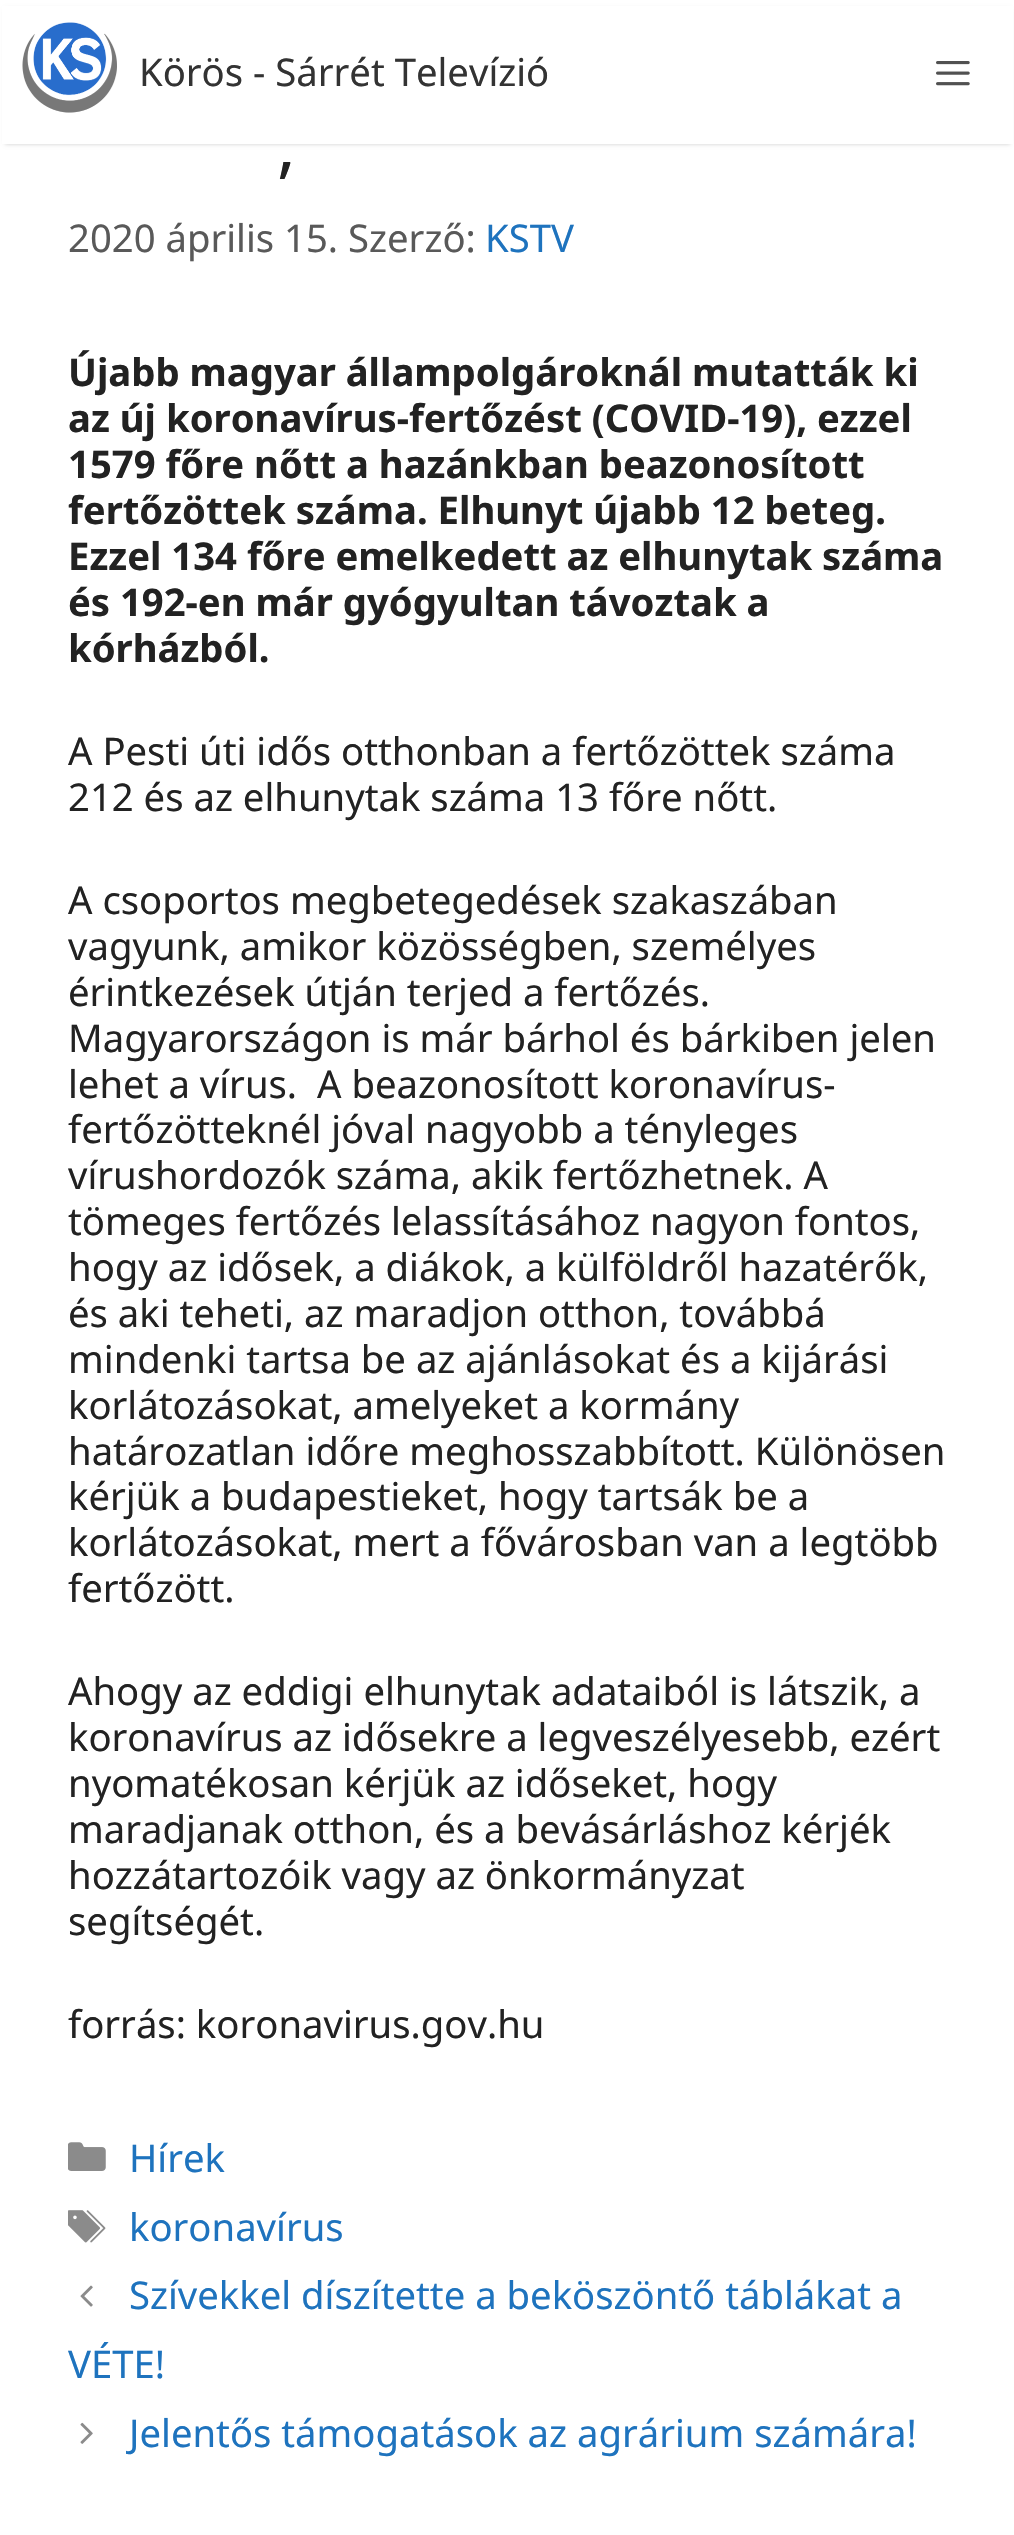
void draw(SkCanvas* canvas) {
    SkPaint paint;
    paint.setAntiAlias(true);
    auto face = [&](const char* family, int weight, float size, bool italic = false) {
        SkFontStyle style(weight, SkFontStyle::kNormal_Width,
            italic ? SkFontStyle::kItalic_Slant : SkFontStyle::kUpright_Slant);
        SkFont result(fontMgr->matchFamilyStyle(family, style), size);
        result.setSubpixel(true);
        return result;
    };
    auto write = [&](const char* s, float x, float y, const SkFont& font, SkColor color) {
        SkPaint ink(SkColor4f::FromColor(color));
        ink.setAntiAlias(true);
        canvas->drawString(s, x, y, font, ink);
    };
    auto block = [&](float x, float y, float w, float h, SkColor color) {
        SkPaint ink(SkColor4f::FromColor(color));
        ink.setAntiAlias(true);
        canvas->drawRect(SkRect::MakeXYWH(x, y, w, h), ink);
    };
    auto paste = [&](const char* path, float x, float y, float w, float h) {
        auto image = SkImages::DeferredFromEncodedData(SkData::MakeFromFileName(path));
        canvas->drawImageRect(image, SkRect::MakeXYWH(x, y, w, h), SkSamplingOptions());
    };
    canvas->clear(SK_ColorWHITE);
    paint.setColor(SkColorSetARGB(51, 0, 0, 0));
    paint.setMaskFilter(SkMaskFilter::MakeBlur(kNormal_SkBlurStyle, 2));
    canvas->drawRect(SkRect::MakeXYWH(5, 9, 1005, 135), paint);
    paint.setMaskFilter(nullptr);
    block(2, 6, 1011, 138, SK_ColorWHITE);
    paste("pic1.png", 22, 22, 95, 91);
    auto kFont1 = face("Noto Sans", 400, 38.25f);
    write("Körös - Sárrét Televízió", 139, 86, kFont1, SkColorSetRGB(51, 51, 51));
    paste("pic2.png", 936, 61, 34, 25);
    auto kFont2 = face("Noto Sans", 400, 70);
    write(",", 277, 170, kFont2, SkColorSetRGB(34, 34, 34));
    write("2020 április 15. Szerző:", 68, 252, kFont1, SkColorSetRGB(89, 89, 89));
    write("KSTV", 485, 252, kFont1, SkColorSetRGB(30, 115, 190));
    auto kFont3 = face("Noto Sans", 700, 38.25f);
    write("Újabb magyar állampolgároknál mutatták ki", 68, 386, kFont3, SkColorSetRGB(34, 34, 34));
    write("az új koronavírus-fertőzést (COVID-19), ezzel", 68, 432, kFont3, SkColorSetRGB(34, 34, 34));
    write("1579 főre nőtt a hazánkban beazonosított", 68, 478, kFont3, SkColorSetRGB(34, 34, 34));
    write("fertőzöttek száma. Elhunyt újabb 12 beteg.", 68, 524, kFont3, SkColorSetRGB(34, 34, 34));
    write("Ezzel 134 főre emelkedett az elhunytak száma", 68, 570, kFont3, SkColorSetRGB(34, 34, 34));
    write("és 192-en már gyógyultan távoztak a", 68, 616, kFont3, SkColorSetRGB(34, 34, 34));
    write("kórházból.", 68, 662, kFont3, SkColorSetRGB(34, 34, 34));
    write("A Pesti úti idős otthonban a fertőzöttek száma", 68, 765, kFont1, SkColorSetRGB(34, 34, 34));
    write("212 és az elhunytak száma 13 főre nőtt.", 68, 811, kFont1, SkColorSetRGB(34, 34, 34));
    write("A csoportos megbetegedések szakaszában", 68, 914, kFont1, SkColorSetRGB(34, 34, 34));
    write("vagyunk, amikor közösségben, személyes", 68, 960, kFont1, SkColorSetRGB(34, 34, 34));
    write("érintkezések útján terjed a fertőzés.", 68, 1006, kFont1, SkColorSetRGB(34, 34, 34));
    write("Magyarországon is már bárhol és bárkiben jelen", 68, 1052, kFont1, SkColorSetRGB(34, 34, 34));
    write("lehet a vírus.  A beazonosított koronavírus-", 68, 1098, kFont1, SkColorSetRGB(34, 34, 34));
    write("fertőzötteknél jóval nagyobb a tényleges", 68, 1143, kFont1, SkColorSetRGB(34, 34, 34));
    write("vírushordozók száma, akik fertőzhetnek. A", 68, 1189, kFont1, SkColorSetRGB(34, 34, 34));
    write("tömeges fertőzés lelassításához nagyon fontos,", 68, 1235, kFont1, SkColorSetRGB(34, 34, 34));
    write("hogy az idősek, a diákok, a külföldről hazatérők,", 68, 1281, kFont1, SkColorSetRGB(34, 34, 34));
    write("és aki teheti, az maradjon otthon, továbbá", 68, 1327, kFont1, SkColorSetRGB(34, 34, 34));
    write("mindenki tartsa be az ajánlásokat és a kijárási", 68, 1373, kFont1, SkColorSetRGB(34, 34, 34));
    write("korlátozásokat, amelyeket a kormány", 68, 1419, kFont1, SkColorSetRGB(34, 34, 34));
    write("határozatlan időre meghosszabbított. Különösen", 68, 1465, kFont1, SkColorSetRGB(34, 34, 34));
    write("kérjük a budapestieket, hogy tartsák be a", 68, 1510, kFont1, SkColorSetRGB(34, 34, 34));
    write("korlátozásokat, mert a fővárosban van a legtöbb", 68, 1556, kFont1, SkColorSetRGB(34, 34, 34));
    write("fertőzött.", 68, 1602, kFont1, SkColorSetRGB(34, 34, 34));
    write("Ahogy az eddigi elhunytak adataiból is látszik, a", 68, 1705, kFont1, SkColorSetRGB(34, 34, 34));
    write("koronavírus az idősekre a legveszélyesebb, ezért", 68, 1751, kFont1, SkColorSetRGB(34, 34, 34));
    write("nyomatékosan kérjük az időseket, hogy", 68, 1797, kFont1, SkColorSetRGB(34, 34, 34));
    write("maradjanak otthon, és a bevásárláshoz kérjék", 68, 1843, kFont1, SkColorSetRGB(34, 34, 34));
    write("hozzátartozóik vagy az önkormányzat", 68, 1889, kFont1, SkColorSetRGB(34, 34, 34));
    write("segítségét.", 68, 1935, kFont1, SkColorSetRGB(34, 34, 34));
    write("forrás: koronavirus.gov.hu", 68, 2038, kFont1, SkColorSetRGB(34, 34, 34));
    paste("pic3.png", 68, 2142, 38, 29);
    write("Hírek", 129, 2172, kFont1, SkColorSetRGB(30, 115, 190));
    paste("pic4.png", 68, 2210, 38, 33);
    write("koronavírus", 129, 2241, kFont1, SkColorSetRGB(30, 115, 190));
    paste("pic5.png", 80, 2285, 13, 22);
    write("Szívekkel díszítette a beköszöntő táblákat a", 129, 2309, kFont1, SkColorSetRGB(30, 115, 190));
    write("VÉTE!", 68, 2378, kFont1, SkColorSetRGB(30, 115, 190));
    paste("pic6.png", 80, 2422, 13, 22);
    write("Jelentős támogatások az agrárium számára!", 129, 2447, kFont1, SkColorSetRGB(30, 115, 190));
}
